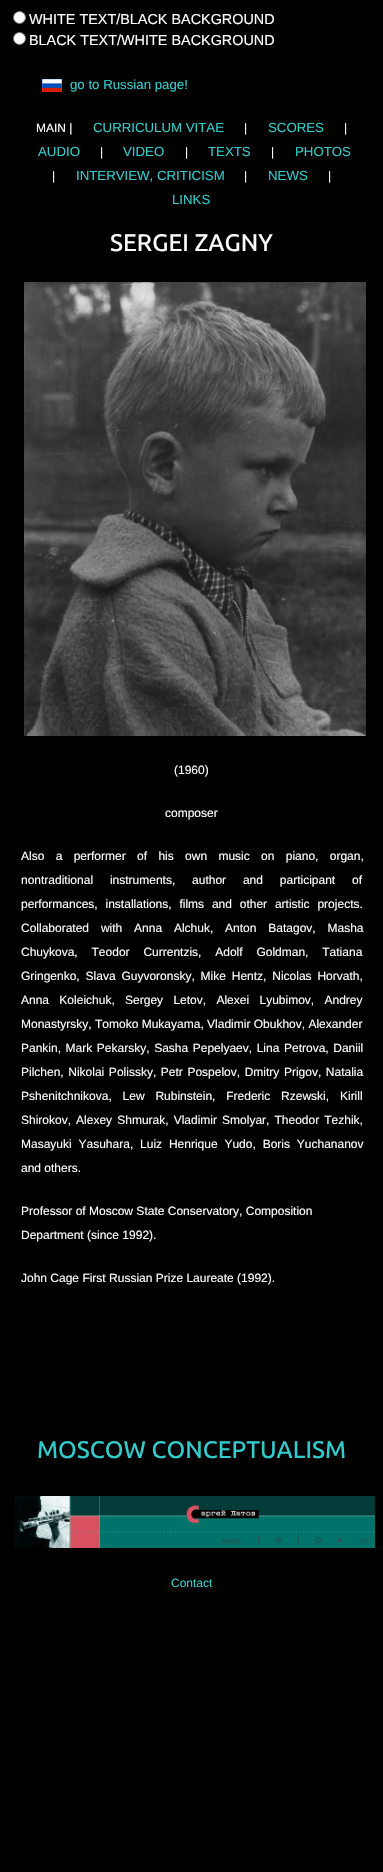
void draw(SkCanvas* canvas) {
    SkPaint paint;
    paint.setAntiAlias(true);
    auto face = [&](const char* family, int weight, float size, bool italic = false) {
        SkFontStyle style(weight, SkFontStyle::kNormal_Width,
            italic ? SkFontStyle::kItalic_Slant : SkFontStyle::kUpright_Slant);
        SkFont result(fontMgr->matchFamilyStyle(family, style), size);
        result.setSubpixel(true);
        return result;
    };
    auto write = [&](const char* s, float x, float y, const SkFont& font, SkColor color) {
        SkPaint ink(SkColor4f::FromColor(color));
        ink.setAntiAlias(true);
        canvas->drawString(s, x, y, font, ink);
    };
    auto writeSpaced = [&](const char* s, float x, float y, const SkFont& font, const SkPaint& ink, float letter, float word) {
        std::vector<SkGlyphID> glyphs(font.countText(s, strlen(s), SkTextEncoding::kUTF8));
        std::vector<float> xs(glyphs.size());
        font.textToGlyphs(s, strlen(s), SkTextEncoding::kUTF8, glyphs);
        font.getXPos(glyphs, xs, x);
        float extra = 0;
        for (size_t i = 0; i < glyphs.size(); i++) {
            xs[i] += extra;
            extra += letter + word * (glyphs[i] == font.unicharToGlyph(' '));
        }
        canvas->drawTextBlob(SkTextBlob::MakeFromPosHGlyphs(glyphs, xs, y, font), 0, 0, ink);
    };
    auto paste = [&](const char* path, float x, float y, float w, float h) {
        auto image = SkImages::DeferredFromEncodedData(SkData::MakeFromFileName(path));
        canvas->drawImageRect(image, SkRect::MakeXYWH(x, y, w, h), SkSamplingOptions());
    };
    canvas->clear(SK_ColorBLACK);
    paint.setColor(SK_ColorWHITE);
    canvas->drawCircle(19.5f, 17.5f, 6, paint);
    paint.setStyle(SkPaint::kStroke_Style);
    paint.setStrokeWidth(1);
    paint.setColor(SkColorSetRGB(118, 118, 118));
    canvas->drawCircle(19.5f, 17.5f, 6, paint);
    auto kFont1 = face("Liberation Sans", 400, 14.4f);
    write("WHITE TEXT/BLACK BACKGROUND", 29, 24, kFont1, SkColorSetRGB(254, 254, 254));
    paint.setStyle(SkPaint::kFill_Style);
    paint.setColor(SK_ColorWHITE);
    canvas->drawCircle(19.5f, 38.5f, 6, paint);
    paint.setStyle(SkPaint::kStroke_Style);
    paint.setColor(SkColorSetRGB(118, 118, 118));
    canvas->drawCircle(19.5f, 38.5f, 6, paint);
    write("BLACK TEXT/WHITE BACKGROUND", 29, 45, kFont1, SkColorSetRGB(254, 254, 254));
    paste("pic1.png", 42, 79, 20, 13);
    auto kFont2 = face("Liberation Sans", 400, 13.25f);
    write("go to Russian page!", 70, 89, kFont2, SkColorSetRGB(51, 204, 204));
    auto kFont3 = face("Liberation Sans", 400, 12);
    write("MAIN |", 36, 132, kFont3, SkColorSetRGB(254, 254, 254));
    write("CURRICULUM VITAE", 93, 132, kFont2, SkColorSetRGB(51, 204, 204));
    write("|", 244, 132, kFont3, SkColorSetRGB(254, 254, 254));
    write("SCORES", 268, 132, kFont2, SkColorSetRGB(51, 204, 204));
    write("|", 344, 132, kFont3, SkColorSetRGB(254, 254, 254));
    write("AUDIO", 38, 156, kFont2, SkColorSetRGB(51, 204, 204));
    write("|", 100, 156, kFont3, SkColorSetRGB(254, 254, 254));
    write("VIDEO", 123, 156, kFont2, SkColorSetRGB(51, 204, 204));
    write("|", 185, 156, kFont3, SkColorSetRGB(254, 254, 254));
    write("TEXTS", 208, 156, kFont2, SkColorSetRGB(51, 204, 204));
    write("|", 271, 156, kFont3, SkColorSetRGB(254, 254, 254));
    write("PHOTOS", 295, 156, kFont2, SkColorSetRGB(51, 204, 204));
    write("|", 52, 180, kFont3, SkColorSetRGB(254, 254, 254));
    write("INTERVIEW, CRITICISM", 76, 180, kFont2, SkColorSetRGB(51, 204, 204));
    write("|", 244, 180, kFont3, SkColorSetRGB(254, 254, 254));
    write("NEWS", 268, 180, kFont2, SkColorSetRGB(51, 204, 204));
    write("|", 328, 180, kFont3, SkColorSetRGB(254, 254, 254));
    write("LINKS", 172, 204, kFont2, SkColorSetRGB(51, 204, 204));
    auto kFont4 = face("Ubuntu", 500, 24);
    write("SERGEI ZAGNY", 110, 251, kFont4, SkColorSetRGB(254, 254, 254));
    paste("pic2.png", 24, 282, 342, 454);
    write("(1960)", 174, 774, kFont3, SkColorSetRGB(254, 254, 254));
    write("composer", 165, 817, kFont3, SkColorSetRGB(254, 254, 254));
    paint.setStyle(SkPaint::kFill_Style);
    paint.setColor(SkColorSetRGB(254, 254, 254));
    writeSpaced("Also a performer of his own music on piano, organ,", 21, 860, kFont3, paint, 0, 8);
    writeSpaced("nontraditional instruments, author and participant of", 21, 884, kFont3, paint, 0, 13.5f);
    writeSpaced("performances, installations, films and other artistic projects.", 21, 908, kFont3, paint, 0, 4.5f);
    writeSpaced("Collaborated with Anna Alchuk, Anton Batagov, Masha", 21, 932, kFont3, paint, 0, 8.5f);
    writeSpaced("Chuykova, Teodor Currentzis, Adolf Goldman, Tatiana", 21, 956, kFont3, paint, 0, 10.5f);
    writeSpaced("Gringenko, Slava Guyvoronsky, Mike Hentz, Nicolas Horvath,", 21, 980, kFont3, paint, 0, 2.5f);
    writeSpaced("Anna Koleichuk, Sergey Letov, Alexei Lyubimov, Andrey", 21, 1004, kFont3, paint, 0, 7);
    write("Monastyrsky, Tomoko Mukayama, Vladimir Obukhov, Alexander", 21, 1028, kFont3, SkColorSetRGB(254, 254, 254));
    writeSpaced("Pankin, Mark Pekarsky, Sasha Pepelyaev, Lina Petrova, Daniil", 21, 1052, kFont3, paint, 0, 1.25f);
    writeSpaced("Pilchen, Nikolai Polissky, Petr Pospelov, Dmitry Prigov, Natalia", 21, 1076, kFont3, paint, 0, 1.25f);
    writeSpaced("Pshenitchnikova, Lew Rubinstein, Frederic Rzewski, Kirill", 21, 1100, kFont3, paint, 0, 7.5f);
    writeSpaced("Shirokov, Alexey Shmurak, Vladimir Smolyar, Theodor Tezhik,", 21, 1124, kFont3, paint, 0, 1.75f);
    writeSpaced("Masayuki Yasuhara, Luiz Henrique Yudo, Boris Yuchananov", 21, 1148, kFont3, paint, 0, 3.5f);
    write("and others.", 21, 1172, kFont3, SkColorSetRGB(254, 254, 254));
    write("Professor of Moscow State Conservatory, Composition", 21, 1215, kFont3, SkColorSetRGB(254, 254, 254));
    write("Department (since 1992).", 21, 1239, kFont3, SkColorSetRGB(254, 254, 254));
    write("John Cage First Russian Prize Laureate (1992).", 21, 1282, kFont3, SkColorSetRGB(254, 254, 254));
    write("MOSCOW CONCEPTUALISM", 37, 1458, kFont4, SkColorSetRGB(51, 204, 204));
    paste("pic3.png", 15, 1496, 360, 52);
    write("Contact", 171, 1587, kFont3, SkColorSetRGB(51, 204, 204));
}
